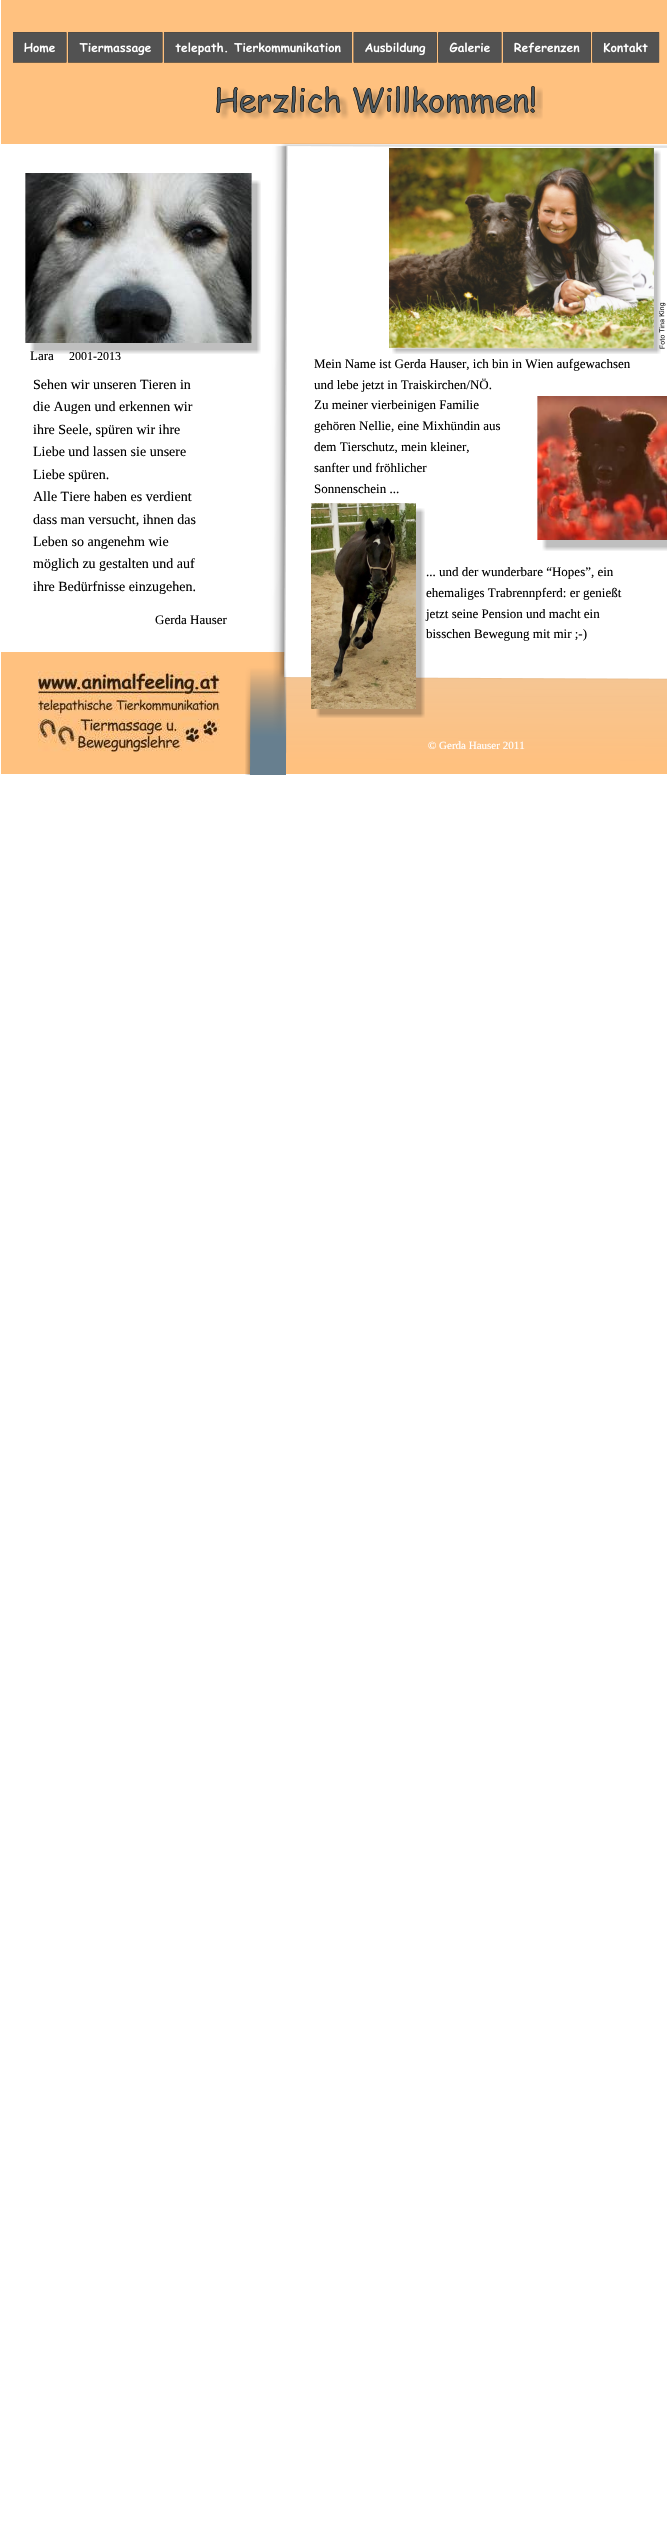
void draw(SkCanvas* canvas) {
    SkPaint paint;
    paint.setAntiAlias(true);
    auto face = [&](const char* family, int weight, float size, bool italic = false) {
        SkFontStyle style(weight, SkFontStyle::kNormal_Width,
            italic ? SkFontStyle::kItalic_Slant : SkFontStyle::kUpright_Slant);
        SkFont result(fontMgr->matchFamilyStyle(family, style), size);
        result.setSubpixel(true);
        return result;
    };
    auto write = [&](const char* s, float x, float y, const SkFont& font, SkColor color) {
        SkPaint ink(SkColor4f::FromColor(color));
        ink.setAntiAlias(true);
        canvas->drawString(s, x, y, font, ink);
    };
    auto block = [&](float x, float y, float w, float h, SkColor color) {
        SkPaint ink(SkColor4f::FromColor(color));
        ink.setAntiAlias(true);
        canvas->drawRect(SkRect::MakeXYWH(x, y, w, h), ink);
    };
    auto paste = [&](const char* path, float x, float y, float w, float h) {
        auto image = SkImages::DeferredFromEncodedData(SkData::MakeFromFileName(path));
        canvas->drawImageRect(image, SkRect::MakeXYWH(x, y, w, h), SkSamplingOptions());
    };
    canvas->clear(SK_ColorWHITE);
    block(1, 0, 666, 144, SkColorSetRGB(255, 193, 127));
    paste("pic1.png", 13, 32, 54, 31);
    paste("pic2.png", 13, 32, 54, 31);
    paste("pic3.png", 68, 32, 95, 31);
    paste("pic4.png", 68, 32, 95, 31);
    paste("pic5.png", 164, 32, 188, 31);
    paste("pic6.png", 164, 32, 188, 31);
    paste("pic7.png", 353, 32, 84, 31);
    paste("pic8.png", 353, 32, 84, 31);
    paste("pic9.png", 438, 32, 64, 31);
    paste("pic10.png", 438, 32, 64, 31);
    paste("pic11.png", 503, 32, 88, 31);
    paste("pic12.png", 503, 32, 88, 31);
    paste("pic13.png", 592, 32, 68, 31);
    paste("pic14.png", 592, 32, 68, 31);
    paste("pic15.png", 216, 86, 327, 34);
    block(1, 652, 666, 122, SkColorSetRGB(255, 193, 127));
    paste("pic16.png", 245, 143, 422, 632);
    paste("pic17.png", 25, 173, 236, 181);
    paste("pic18.png", 389, 148, 272, 206);
    paste("pic19.png", 659, 302, 7, 47);
    auto kFont1 = face("Liberation Serif", 400, 13);
    write("Lara", 30, 360, kFont1, SK_ColorBLACK);
    auto kFont2 = face("Liberation Serif", 400, 12);
    write("2001-2013", 69, 360, kFont2, SK_ColorBLACK);
    auto kFont3 = face("Liberation Serif", 400, 14);
    write("Sehen wir unseren Tieren in", 33, 389, kFont3, SK_ColorBLACK);
    write("die Augen und erkennen wir", 33, 411, kFont3, SK_ColorBLACK);
    write("ihre Seele, spüren wir ihre", 33, 434, kFont3, SK_ColorBLACK);
    write("Liebe und lassen sie unsere", 33, 456, kFont3, SK_ColorBLACK);
    write("Liebe spüren.", 33, 479, kFont3, SK_ColorBLACK);
    write("Alle Tiere haben es verdient", 33, 501, kFont3, SK_ColorBLACK);
    write("dass man versucht, ihnen das", 33, 524, kFont3, SK_ColorBLACK);
    write("Leben so angenehm wie", 33, 546, kFont3, SK_ColorBLACK);
    write("möglich zu gestalten und auf", 33, 568, kFont3, SK_ColorBLACK);
    write("ihre Bedürfnisse einzugehen.", 33, 591, kFont3, SK_ColorBLACK);
    write("Mein Name ist Gerda Hauser, ich bin in Wien aufgewachsen", 314, 368, kFont1, SK_ColorBLACK);
    write("und lebe jetzt in Traiskirchen/NÖ.", 314, 389, kFont1, SK_ColorBLACK);
    write("Zu meiner vierbeinigen Familie", 314, 409, kFont1, SK_ColorBLACK);
    write("gehören Nellie, eine Mixhündin aus", 314, 430, kFont1, SK_ColorBLACK);
    write("dem Tierschutz, mein kleiner,", 314, 451, kFont1, SK_ColorBLACK);
    write("sanfter und fröhlicher", 314, 472, kFont1, SK_ColorBLACK);
    write("Sonnenschein ...", 314, 493, kFont1, SK_ColorBLACK);
    write("... und der wunderbare “Hopes”, ein", 426, 576, kFont1, SK_ColorBLACK);
    write("ehemaliges Trabrennpferd: er genießt", 426, 597, kFont1, SK_ColorBLACK);
    write("jetzt seine Pension und macht ein", 426, 618, kFont1, SK_ColorBLACK);
    write("bisschen Bewegung mit mir ;-)", 426, 638, kFont1, SK_ColorBLACK);
    paste("pic20.png", 537, 396, 130, 155);
    write("Gerda Hauser", 155, 624, kFont1, SK_ColorBLACK);
    paste("pic21.png", 311, 503, 114, 215);
    paste("pic22.png", 38, 671, 182, 81);
    auto kFont4 = face("Liberation Serif", 400, 11);
    write("© Gerda Hauser 2011", 428, 749, kFont4, SK_ColorWHITE);
}
